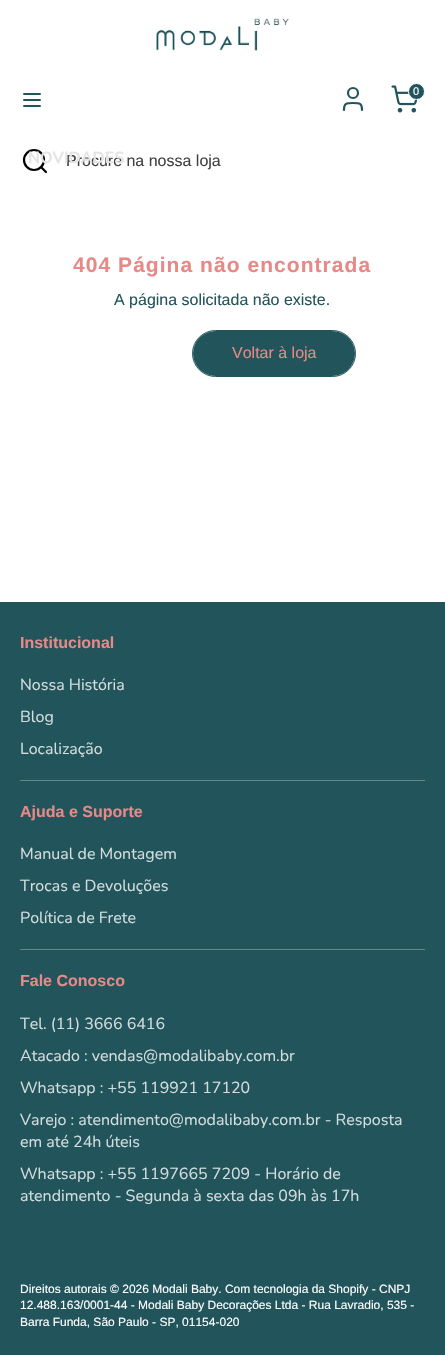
void draw(SkCanvas* canvas) {
    SkPaint paint;
    paint.setAntiAlias(true);
    auto face = [&](const char* family, int weight, float size, bool italic = false) {
        SkFontStyle style(weight, SkFontStyle::kNormal_Width,
            italic ? SkFontStyle::kItalic_Slant : SkFontStyle::kUpright_Slant);
        SkFont result(fontMgr->matchFamilyStyle(family, style), size);
        result.setSubpixel(true);
        return result;
    };
    auto write = [&](const char* s, float x, float y, const SkFont& font, SkColor color) {
        SkPaint ink(SkColor4f::FromColor(color));
        ink.setAntiAlias(true);
        canvas->drawString(s, x, y, font, ink);
    };
    auto writeSpaced = [&](const char* s, float x, float y, const SkFont& font, const SkPaint& ink, float letter, float word) {
        std::vector<SkGlyphID> glyphs(font.countText(s, strlen(s), SkTextEncoding::kUTF8));
        std::vector<float> xs(glyphs.size());
        font.textToGlyphs(s, strlen(s), SkTextEncoding::kUTF8, glyphs);
        font.getXPos(glyphs, xs, x);
        float extra = 0;
        for (size_t i = 0; i < glyphs.size(); i++) {
            xs[i] += extra;
            extra += letter + word * (glyphs[i] == font.unicharToGlyph(' '));
        }
        canvas->drawTextBlob(SkTextBlob::MakeFromPosHGlyphs(glyphs, xs, y, font), 0, 0, ink);
    };
    auto block = [&](float x, float y, float w, float h, SkColor color) {
        SkPaint ink(SkColor4f::FromColor(color));
        ink.setAntiAlias(true);
        canvas->drawRect(SkRect::MakeXYWH(x, y, w, h), ink);
    };
    auto card = [&](float x, float y, float w, float h, float radius, SkColor color) {
        SkPaint ink(SkColor4f::FromColor(color));
        ink.setAntiAlias(true);
        canvas->drawRoundRect(SkRect::MakeXYWH(x, y, w, h), radius, radius, ink);
    };
    auto paste = [&](const char* path, float x, float y, float w, float h) {
        auto image = SkImages::DeferredFromEncodedData(SkData::MakeFromFileName(path));
        canvas->drawImageRect(image, SkRect::MakeXYWH(x, y, w, h), SkSamplingOptions());
    };
    canvas->clear(SK_ColorWHITE);
    paste("pic1.png", 156, 18, 133, 33);
    paint.setStyle(SkPaint::kStroke_Style);
    paint.setStrokeWidth(2.2f);
    paint.setStrokeCap(SkPaint::kRound_Cap);
    paint.setStrokeJoin(SkPaint::kRound_Join);
    paint.setColor(SkColorSetRGB(34, 84, 91));
    canvas->drawPath(SkPathBuilder().moveTo(362, 110).cubicTo(362, 103, 359.5f, 103, 353, 103).cubicTo(346.5f, 103, 344, 103, 344, 110).detach(), paint);
    paint.setStrokeCap(SkPaint::kButt_Cap);
    paint.setStrokeJoin(SkPaint::kMiter_Join);
    canvas->drawCircle(353, 93, 5, paint);
    paste("pic2.png", 391, 85, 27, 28);
    paint.setStyle(SkPaint::kFill_Style);
    canvas->drawCircle(416.5f, 91.5f, 8, paint);
    paint.setStyle(SkPaint::kStroke_Style);
    paint.setStrokeWidth(1);
    paint.setColor(SK_ColorWHITE);
    canvas->drawCircle(416.5f, 91.5f, 8, paint);
    auto kFont1 = face("Liberation Sans", 400, 11);
    write("0", 413, 95, kFont1, SK_ColorWHITE);
    paint.setStrokeWidth(2);
    paint.setStrokeCap(SkPaint::kRound_Cap);
    paint.setStrokeJoin(SkPaint::kRound_Join);
    paint.setColor(SkColorSetRGB(34, 84, 91));
    canvas->drawPath(SkPathBuilder().moveTo(24, 100).lineTo(40, 100).moveTo(24, 94).lineTo(40, 94).moveTo(24, 106).lineTo(40, 106).detach(), paint);
    paint.setStrokeWidth(2.2f);
    paint.setStrokeCap(SkPaint::kButt_Cap);
    paint.setStrokeJoin(SkPaint::kMiter_Join);
    paint.setColor(SK_ColorBLACK);
    canvas->drawCircle(34, 160, 10, paint);
    auto kFont2 = face("Liberation Sans", 400, 16);
    write("Procure na nossa loja", 66, 166, kFont2, SkColorSetRGB(64, 64, 64));
    auto kFont3 = face("Nunito", 700, 16);
    write("NOVIDADES", 28, 163, kFont3, SkColorSetRGB(228, 228, 228));
    paint.setStrokeCap(SkPaint::kRound_Cap);
    paint.setStrokeJoin(SkPaint::kRound_Join);
    canvas->drawPath(SkPathBuilder().moveTo(46, 172).lineTo(41, 167).detach(), paint);
    auto kFont4 = face("Liberation Sans", 700, 21);
    paint.setStyle(SkPaint::kFill_Style);
    paint.setColor(SkColorSetRGB(230, 137, 135));
    writeSpaced("404 Página não encontrada", 73, 272, kFont4, paint, 1.05f, 0);
    write("A página solicitada não existe.", 114, 305, kFont2, SkColorSetRGB(34, 84, 91));
    paint.setStyle(SkPaint::kStroke_Style);
    paint.setStrokeWidth(1);
    paint.setStrokeCap(SkPaint::kButt_Cap);
    paint.setStrokeJoin(SkPaint::kMiter_Join);
    paint.setColor(SkColorSetRGB(34, 84, 91));
    canvas->drawRoundRect(SkRect::MakeXYWH(192.5f, 330.5f, 163, 46), 23, 23, paint);
    card(193, 331, 162, 45, 22.5f, SkColorSetRGB(34, 84, 91));
    write("Voltar à loja", 232, 358, kFont2, SkColorSetRGB(230, 137, 135));
    block(0, 602, 445, 753, SkColorSetRGB(34, 84, 91));
    block(20, 780, 405, 1, SkColorSetRGB(100, 135, 140));
    auto kFont5 = face("Liberation Sans", 700, 16);
    write("Institucional", 20, 648, kFont5, SkColorSetRGB(230, 137, 135));
    auto kFont6 = face("Nunito", 400, 16);
    write("Nossa História", 20, 690, kFont6, SkColorSetRGB(211, 221, 222));
    write("Blog", 20, 722, kFont6, SkColorSetRGB(211, 221, 222));
    write("Localização", 20, 754, kFont6, SkColorSetRGB(211, 221, 222));
    block(20, 949, 405, 1, SkColorSetRGB(100, 135, 140));
    write("Ajuda e Suporte", 20, 817, kFont5, SkColorSetRGB(230, 137, 135));
    write("Manual de Montagem", 20, 859, kFont6, SkColorSetRGB(211, 221, 222));
    write("Trocas e Devoluções", 20, 891, kFont6, SkColorSetRGB(211, 221, 222));
    write("Política de Frete", 20, 923, kFont6, SkColorSetRGB(211, 221, 222));
    write("Fale Conosco", 20, 986, kFont5, SkColorSetRGB(230, 137, 135));
    write("Tel. (11) 3666 6416", 20, 1029, kFont6, SkColorSetRGB(211, 221, 222));
    write("Atacado : vendas@modalibaby.com.br", 20, 1061, kFont6, SkColorSetRGB(211, 221, 222));
    write("Whatsapp : +55 119921 17120", 20, 1093, kFont6, SkColorSetRGB(211, 221, 222));
    write("Varejo : atendimento@modalibaby.com.br - Resposta", 20, 1125, kFont6, SkColorSetRGB(211, 221, 222));
    write("em até 24h úteis", 20, 1147, kFont6, SkColorSetRGB(211, 221, 222));
    write("Whatsapp : +55 1197665 7209 - Horário de", 20, 1179, kFont6, SkColorSetRGB(211, 221, 222));
    write("atendimento - Segunda à sexta das 09h às 17h", 20, 1201, kFont6, SkColorSetRGB(211, 221, 222));
    auto kFont7 = face("Liberation Sans", 400, 12);
    write("Direitos autorais © 2026 Modali Baby. Com tecnologia da Shopify - CNPJ", 20, 1293, kFont7, SK_ColorWHITE);
    write("12.488.163/0001-44 - Modali Baby Decorações Ltda - Rua Lavradio, 535 -", 20, 1309, kFont7, SK_ColorWHITE);
    write("Barra Funda, São Paulo - SP, 01154-020", 20, 1326, kFont7, SK_ColorWHITE);
}
